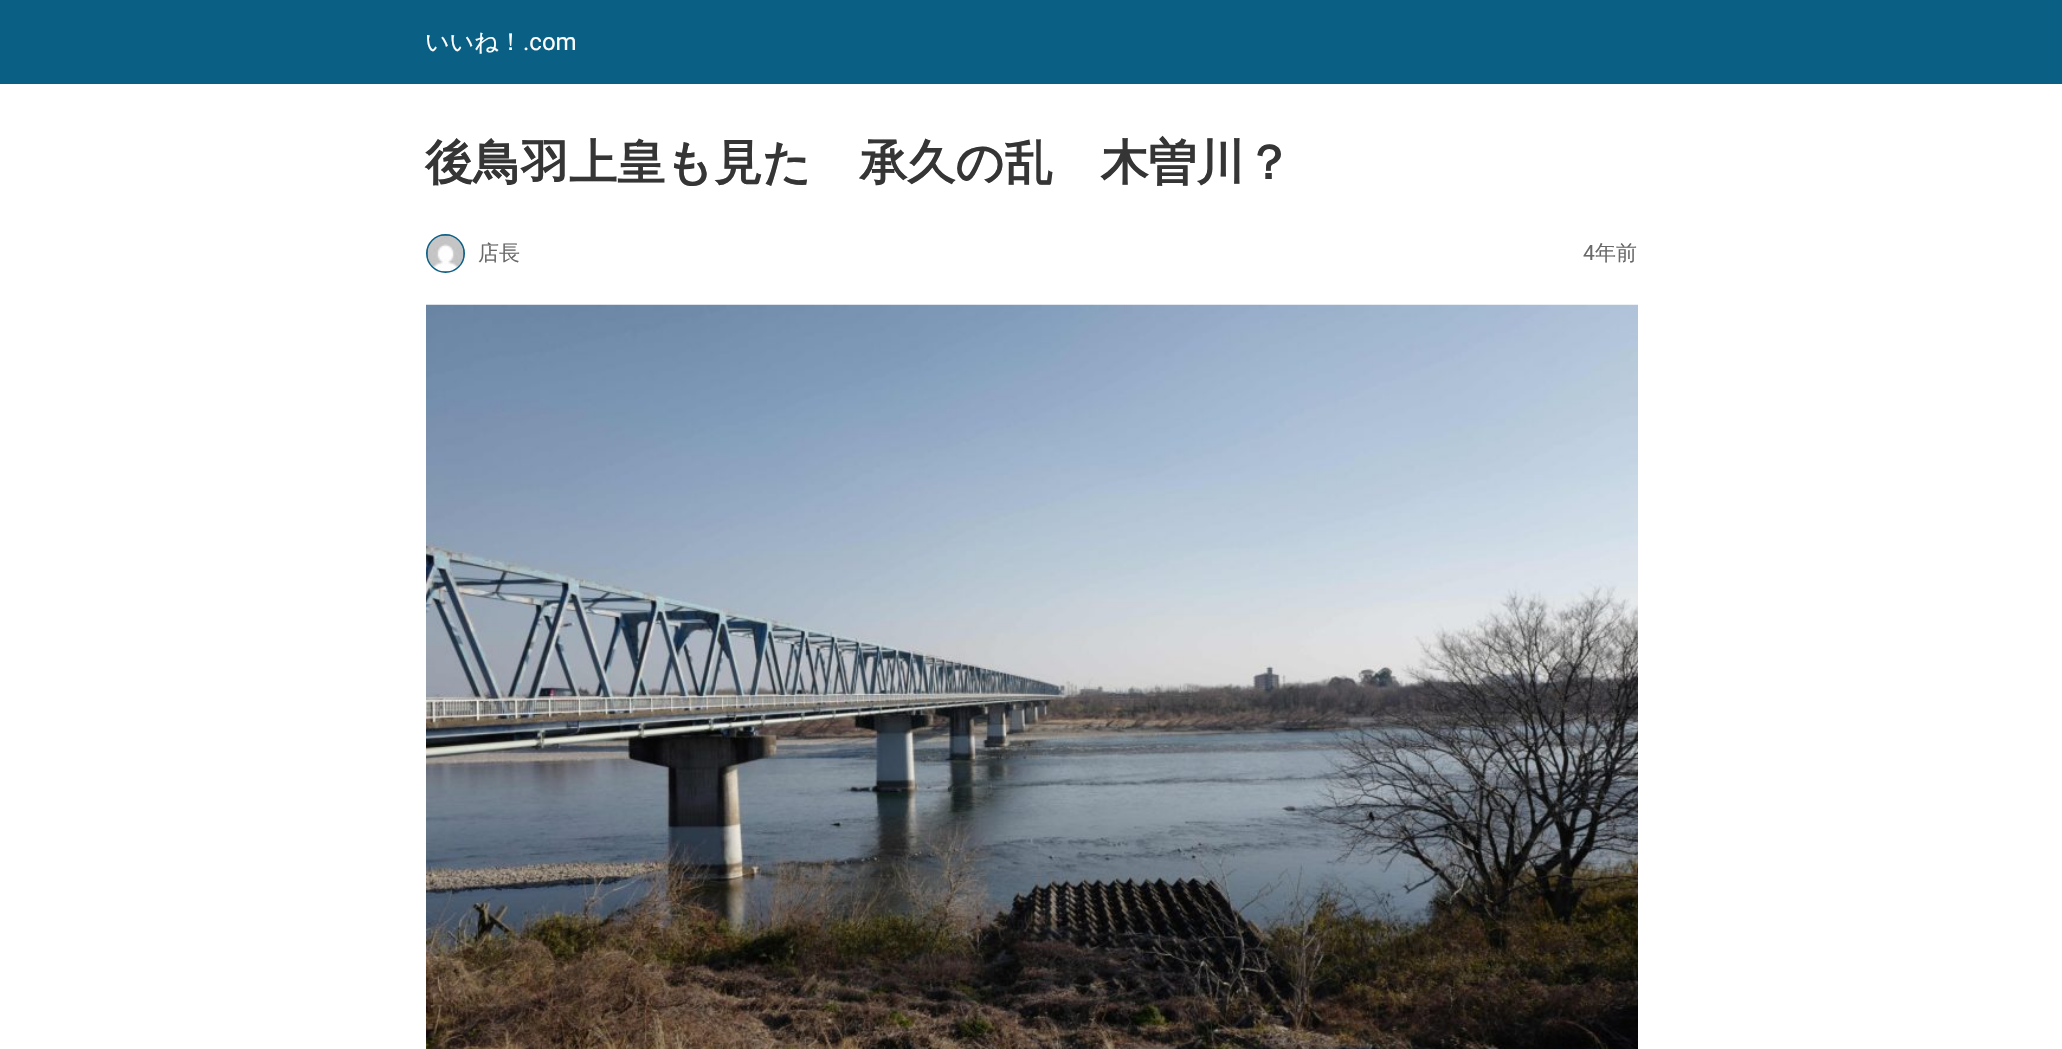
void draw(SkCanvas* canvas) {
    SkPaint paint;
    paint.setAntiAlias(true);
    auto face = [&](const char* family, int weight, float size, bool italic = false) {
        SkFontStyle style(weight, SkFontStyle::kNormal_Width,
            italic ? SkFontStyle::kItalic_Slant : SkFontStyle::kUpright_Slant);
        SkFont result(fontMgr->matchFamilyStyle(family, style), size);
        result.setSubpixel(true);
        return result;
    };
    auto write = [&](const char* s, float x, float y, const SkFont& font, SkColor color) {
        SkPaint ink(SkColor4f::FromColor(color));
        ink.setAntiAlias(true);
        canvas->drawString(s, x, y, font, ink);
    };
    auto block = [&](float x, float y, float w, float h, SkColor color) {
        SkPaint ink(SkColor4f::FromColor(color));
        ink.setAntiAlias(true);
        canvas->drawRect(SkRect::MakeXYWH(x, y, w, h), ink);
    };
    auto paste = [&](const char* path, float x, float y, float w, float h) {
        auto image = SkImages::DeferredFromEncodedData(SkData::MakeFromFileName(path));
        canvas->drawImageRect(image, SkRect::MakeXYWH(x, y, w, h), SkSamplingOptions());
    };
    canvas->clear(SK_ColorWHITE);
    block(0, 0, 2062, 84, SkColorSetRGB(10, 95, 133));
    auto kFont1 = face("WenQuanYi Zen Hei", 500, 24);
    write("いいね！", 425, 50, kFont1, SK_ColorWHITE);
    auto kFont2 = face("Roboto", 400, 24);
    write(".com", 523, 50, kFont2, SK_ColorWHITE);
    auto kFont3 = face("WenQuanYi Zen Hei", 700, 48);
    write("後鳥羽上皇も見た　承久の乱　木曽川？", 425, 179, kFont3, SkColorSetRGB(53, 53, 53));
    paint.setStyle(SkPaint::kStroke_Style);
    paint.setStrokeWidth(2);
    paint.setColor(SkColorSetRGB(10, 95, 133));
    canvas->drawCircle(445.5f, 253.5f, 18.5f, paint);
    paste("pic1.png", 427, 235, 37, 37);
    auto kFont4 = face("WenQuanYi Zen Hei", 500, 21);
    write("店長", 478, 260, kFont4, SkColorSetRGB(105, 105, 105));
    auto kFont5 = face("Roboto", 400, 21);
    write("4", 1583, 260, kFont5, SkColorSetRGB(105, 105, 105));
    write("年前", 1595, 260, kFont4, SkColorSetRGB(105, 105, 105));
    paste("pic2.png", 426, 304, 1212, 745);
}
